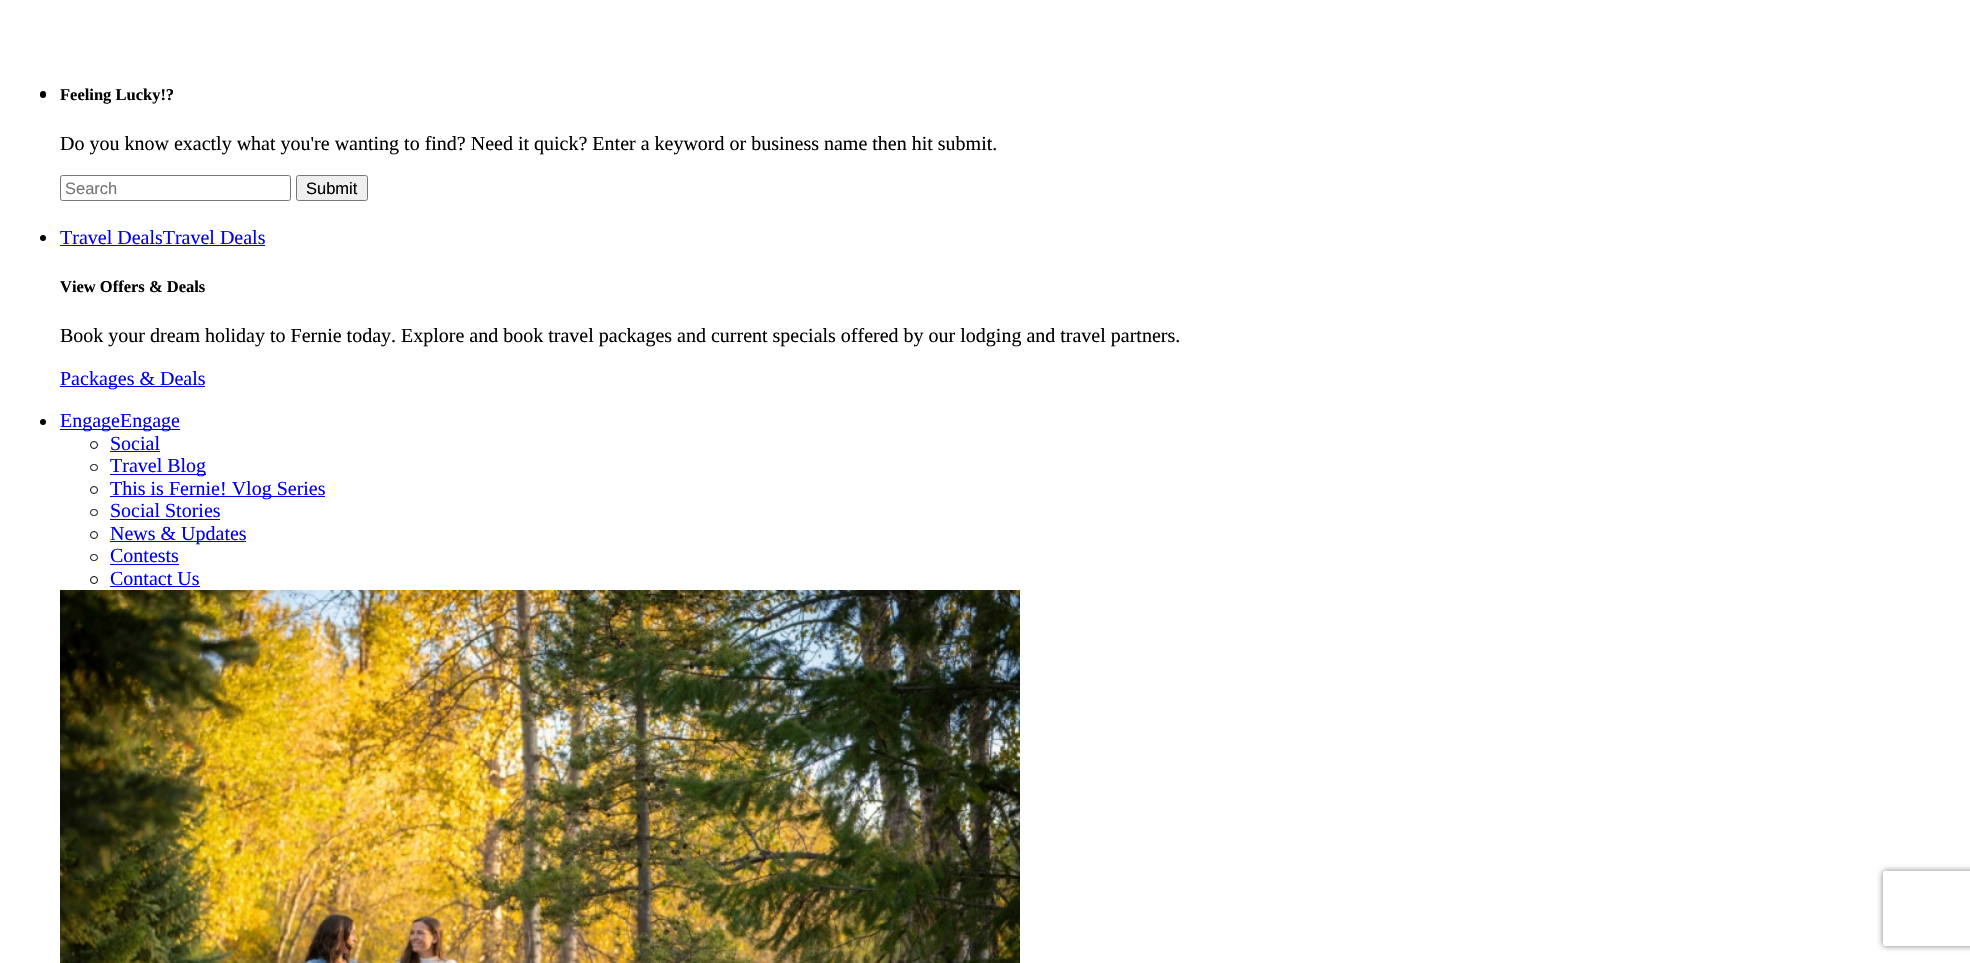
void draw(SkCanvas* canvas) {
    SkPaint paint;
    paint.setAntiAlias(true);
    auto face = [&](const char* family, int weight, float size, bool italic = false) {
        SkFontStyle style(weight, SkFontStyle::kNormal_Width,
            italic ? SkFontStyle::kItalic_Slant : SkFontStyle::kUpright_Slant);
        SkFont result(fontMgr->matchFamilyStyle(family, style), size);
        result.setSubpixel(true);
        return result;
    };
    auto write = [&](const char* s, float x, float y, const SkFont& font, SkColor color) {
        SkPaint ink(SkColor4f::FromColor(color));
        ink.setAntiAlias(true);
        canvas->drawString(s, x, y, font, ink);
    };
    auto block = [&](float x, float y, float w, float h, SkColor color) {
        SkPaint ink(SkColor4f::FromColor(color));
        ink.setAntiAlias(true);
        canvas->drawRect(SkRect::MakeXYWH(x, y, w, h), ink);
    };
    auto card = [&](float x, float y, float w, float h, float radius, SkColor color) {
        SkPaint ink(SkColor4f::FromColor(color));
        ink.setAntiAlias(true);
        canvas->drawRoundRect(SkRect::MakeXYWH(x, y, w, h), radius, radius, ink);
    };
    auto paste = [&](const char* path, float x, float y, float w, float h) {
        auto image = SkImages::DeferredFromEncodedData(SkData::MakeFromFileName(path));
        canvas->drawImageRect(image, SkRect::MakeXYWH(x, y, w, h), SkSamplingOptions());
    };
    canvas->clear(SK_ColorWHITE);
    card(40, 91, 6, 7, 3, SK_ColorBLACK);
    auto kFont1 = face("Liberation Serif", 700, 16.5f);
    write("Feeling Lucky!?", 60, 100, kFont1, SK_ColorBLACK);
    auto kFont2 = face("Liberation Serif", 400, 20);
    write("Do you know exactly what you're wanting to find? Need it quick? Enter a keyword or business name then hit submit.", 60, 150, kFont2, SK_ColorBLACK);
    paint.setStyle(SkPaint::kStroke_Style);
    paint.setStrokeWidth(1);
    paint.setColor(SkColorSetRGB(118, 118, 118));
    canvas->drawRoundRect(SkRect::MakeXYWH(60.5f, 175.5f, 230, 25), 2, 2, paint);
    auto kFont3 = face("Liberation Sans", 400, 16.5f);
    write("Search", 65, 194, kFont3, SkColorSetRGB(117, 117, 117));
    paint.setStyle(SkPaint::kFill_Style);
    paint.setColor(SkColorSetRGB(239, 239, 239));
    canvas->drawRoundRect(SkRect::MakeXYWH(296.5f, 175.5f, 71, 25), 2, 2, paint);
    paint.setStyle(SkPaint::kStroke_Style);
    paint.setColor(SkColorSetRGB(118, 118, 118));
    canvas->drawRoundRect(SkRect::MakeXYWH(296.5f, 175.5f, 71, 25), 2, 2, paint);
    write("Submit", 306, 194, kFont3, SK_ColorBLACK);
    paint.setStyle(SkPaint::kFill_Style);
    paint.setColor(SK_ColorBLACK);
    canvas->drawCircle(43, 238, 3, paint);
    write("Travel DealsTravel Deals", 60, 244, kFont2, SkColorSetRGB(0, 0, 238));
    block(60, 245, 205, 1, SkColorSetRGB(0, 0, 238));
    write("View Offers & Deals", 60, 292, kFont1, SK_ColorBLACK);
    write("Book your dream holiday to Fernie today. Explore and book travel packages and current specials offered by our lodging and travel partners.", 60, 342, kFont2, SK_ColorBLACK);
    block(60, 386, 145, 1, SkColorSetRGB(0, 0, 238));
    write("Packages & Deals", 60, 385, kFont2, SkColorSetRGB(0, 0, 238));
    canvas->drawCircle(43, 422, 3, paint);
    block(60, 429, 120, 1, SkColorSetRGB(0, 0, 238));
    write("EngageEngage", 60, 427, kFont2, SkColorSetRGB(0, 0, 238));
    paint.setStyle(SkPaint::kStroke_Style);
    canvas->drawCircle(94, 445, 3.5f, paint);
    write("Social", 110, 450, kFont2, SkColorSetRGB(0, 0, 238));
    block(110, 451, 50, 1, SkColorSetRGB(0, 0, 238));
    canvas->drawRoundRect(SkRect::MakeXYWH(90.5f, 464.5f, 7, 6), 3, 3, paint);
    block(110, 474, 96, 1, SkColorSetRGB(0, 0, 238));
    write("Travel Blog", 110, 472, kFont2, SkColorSetRGB(0, 0, 238));
    canvas->drawCircle(94, 490, 3.5f, paint);
    block(110, 496, 215, 1, SkColorSetRGB(0, 0, 238));
    write("This is Fernie! Vlog Series", 110, 495, kFont2, SkColorSetRGB(0, 0, 238));
    canvas->drawRoundRect(SkRect::MakeXYWH(90.5f, 509.5f, 7, 6), 3, 3, paint);
    write("Social Stories", 110, 517, kFont2, SkColorSetRGB(0, 0, 238));
    block(110, 519, 110, 1, SkColorSetRGB(0, 0, 238));
    canvas->drawCircle(94, 535, 3.5f, paint);
    block(110, 541, 136, 1, SkColorSetRGB(0, 0, 238));
    write("News & Updates", 110, 540, kFont2, SkColorSetRGB(0, 0, 238));
    canvas->drawRoundRect(SkRect::MakeXYWH(90.5f, 554.5f, 7, 6), 3, 3, paint);
    write("Contests", 110, 562, kFont2, SkColorSetRGB(0, 0, 238));
    block(110, 564, 69, 1, SkColorSetRGB(0, 0, 238));
    canvas->drawCircle(94, 580, 3.5f, paint);
    write("Contact Us", 110, 585, kFont2, SkColorSetRGB(0, 0, 238));
    block(110, 586, 90, 1, SkColorSetRGB(0, 0, 238));
    paste("pic1.png", 60, 590, 960, 373);
    canvas->save();
    canvas->clipPath(SkPathBuilder(SkPathFillType::kEvenOdd).moveTo(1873, 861).lineTo(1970, 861).lineTo(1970, 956).lineTo(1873, 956).close().moveTo(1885.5f, 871).lineTo(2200.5f, 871).cubicTo(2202, 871, 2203, 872, 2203, 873.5f).lineTo(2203, 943.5f).cubicTo(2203, 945, 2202, 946, 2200.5f, 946).lineTo(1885.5f, 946).cubicTo(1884, 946, 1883, 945, 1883, 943.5f).lineTo(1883, 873.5f).cubicTo(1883, 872, 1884, 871, 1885.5f, 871).close().detach(), true);
    paint.setStyle(SkPaint::kFill_Style);
    paint.setColor(SkColorSetRGB(128, 128, 128));
    paint.setMaskFilter(SkMaskFilter::MakeBlur(kNormal_SkBlurStyle, 3));
    canvas->drawRoundRect(SkRect::MakeXYWH(1883, 871, 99, 75), 2.5f, 2.5f, paint);
    paint.setMaskFilter(nullptr);
    canvas->restore();
}
